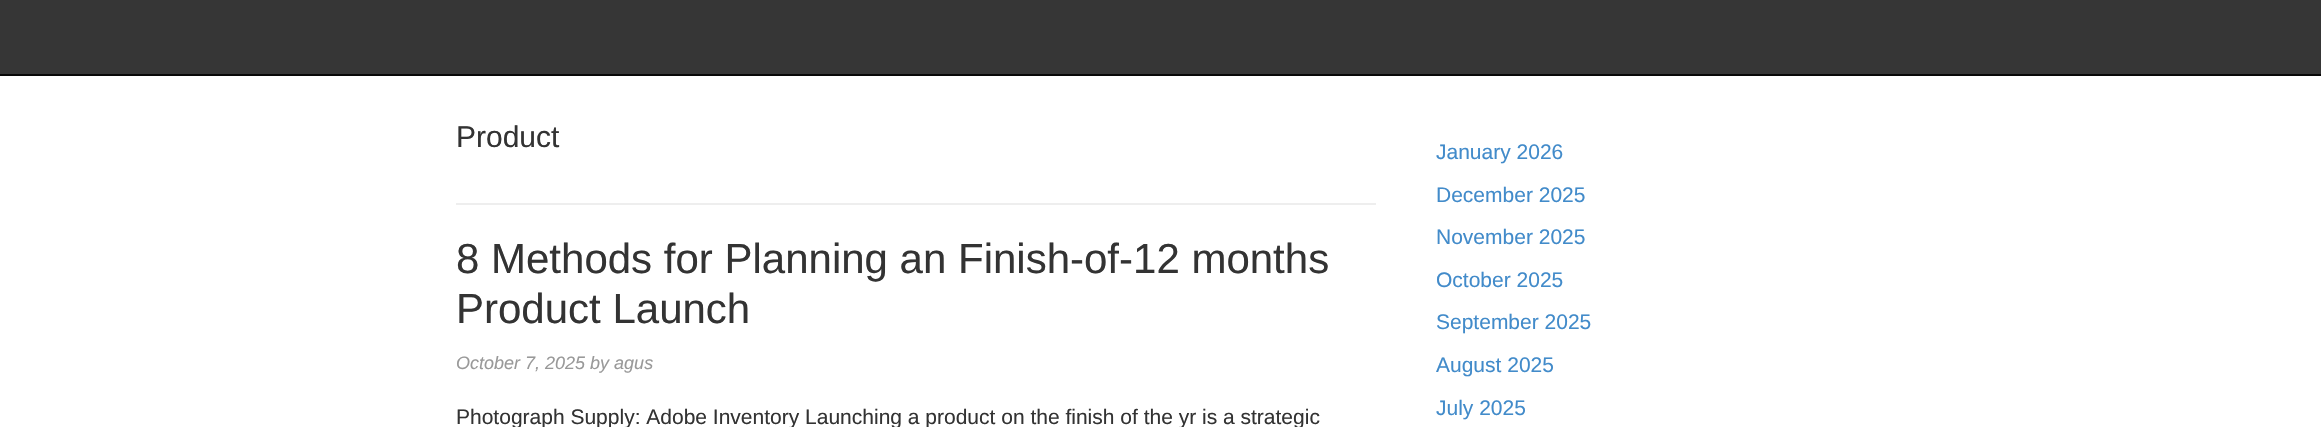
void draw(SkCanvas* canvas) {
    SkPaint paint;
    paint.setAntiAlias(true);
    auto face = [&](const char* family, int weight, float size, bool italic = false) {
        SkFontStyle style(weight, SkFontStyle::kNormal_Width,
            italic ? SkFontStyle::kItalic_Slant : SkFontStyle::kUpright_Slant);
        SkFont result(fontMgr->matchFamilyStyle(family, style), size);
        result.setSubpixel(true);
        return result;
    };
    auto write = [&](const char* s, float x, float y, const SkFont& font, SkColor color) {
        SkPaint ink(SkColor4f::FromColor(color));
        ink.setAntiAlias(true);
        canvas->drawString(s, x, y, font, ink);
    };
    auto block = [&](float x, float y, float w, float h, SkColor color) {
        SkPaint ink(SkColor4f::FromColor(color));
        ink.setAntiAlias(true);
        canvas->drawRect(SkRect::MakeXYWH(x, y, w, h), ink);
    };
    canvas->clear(SK_ColorWHITE);
    block(0, 0, 2321, 74, SkColorSetRGB(54, 54, 54));
    block(0, 74, 2321, 2, SkColorSetRGB(8, 8, 8));
    block(456, 203, 920, 2, SkColorSetRGB(238, 238, 238));
    auto kFont1 = face("Liberation Sans", 400, 30);
    write("Product", 456, 147, kFont1, SkColorSetRGB(51, 51, 51));
    auto kFont2 = face("Liberation Sans", 400, 42);
    write("8 Methods for Planning an Finish-of-12 months", 456, 273, kFont2, SkColorSetRGB(51, 51, 51));
    write("Product Launch", 456, 323, kFont2, SkColorSetRGB(51, 51, 51));
    auto kFont3 = face("Liberation Sans", 400, 18, true);
    write("October 7, 2025 by agus", 456, 369, kFont3, SkColorSetRGB(153, 153, 153));
    auto kFont4 = face("Liberation Sans", 400, 21);
    write("Photograph Supply: Adobe Inventory Launching a product on the finish of the yr is a strategic", 456, 424, kFont4, SkColorSetRGB(51, 51, 51));
    write("January 2026", 1436, 159, kFont4, SkColorSetRGB(66, 139, 202));
    write("December 2025", 1436, 202, kFont4, SkColorSetRGB(66, 139, 202));
    write("November 2025", 1436, 244, kFont4, SkColorSetRGB(66, 139, 202));
    write("October 2025", 1436, 287, kFont4, SkColorSetRGB(66, 139, 202));
    write("September 2025", 1436, 329, kFont4, SkColorSetRGB(66, 139, 202));
    write("August 2025", 1436, 372, kFont4, SkColorSetRGB(66, 139, 202));
    write("July 2025", 1436, 415, kFont4, SkColorSetRGB(66, 139, 202));
}
